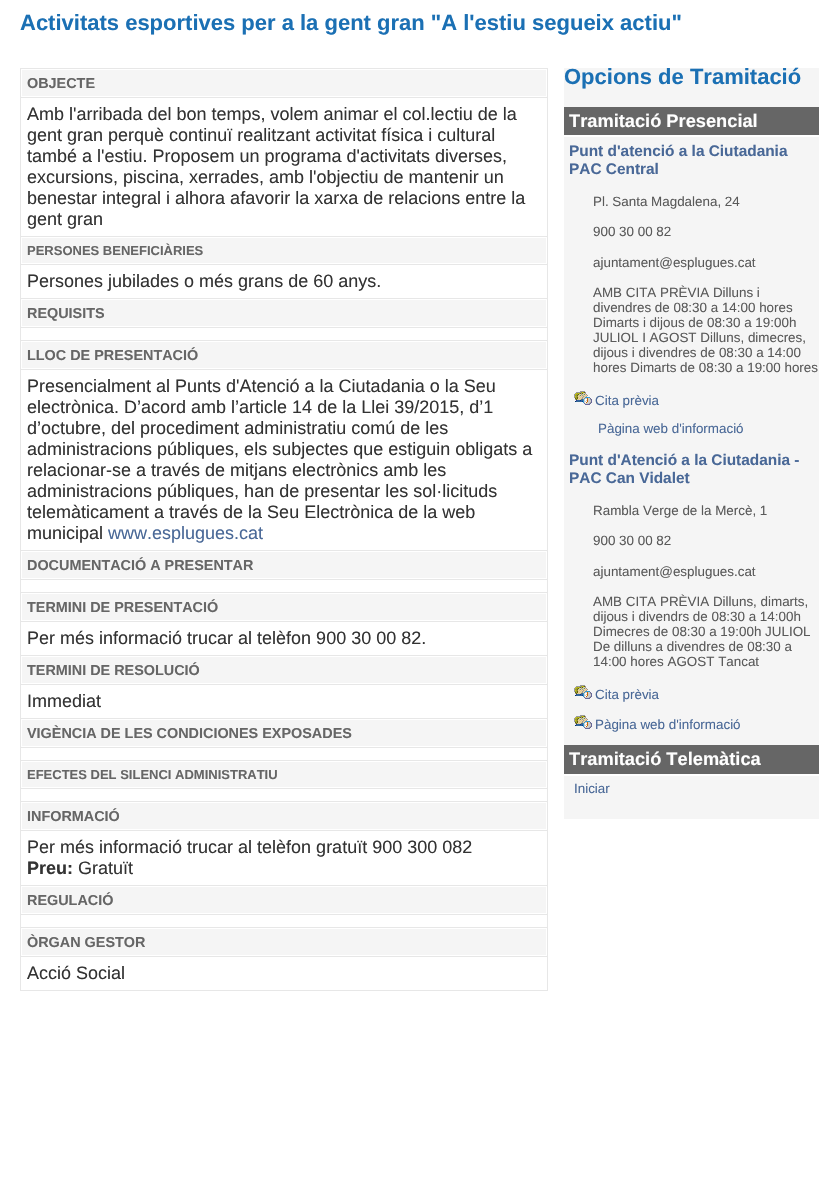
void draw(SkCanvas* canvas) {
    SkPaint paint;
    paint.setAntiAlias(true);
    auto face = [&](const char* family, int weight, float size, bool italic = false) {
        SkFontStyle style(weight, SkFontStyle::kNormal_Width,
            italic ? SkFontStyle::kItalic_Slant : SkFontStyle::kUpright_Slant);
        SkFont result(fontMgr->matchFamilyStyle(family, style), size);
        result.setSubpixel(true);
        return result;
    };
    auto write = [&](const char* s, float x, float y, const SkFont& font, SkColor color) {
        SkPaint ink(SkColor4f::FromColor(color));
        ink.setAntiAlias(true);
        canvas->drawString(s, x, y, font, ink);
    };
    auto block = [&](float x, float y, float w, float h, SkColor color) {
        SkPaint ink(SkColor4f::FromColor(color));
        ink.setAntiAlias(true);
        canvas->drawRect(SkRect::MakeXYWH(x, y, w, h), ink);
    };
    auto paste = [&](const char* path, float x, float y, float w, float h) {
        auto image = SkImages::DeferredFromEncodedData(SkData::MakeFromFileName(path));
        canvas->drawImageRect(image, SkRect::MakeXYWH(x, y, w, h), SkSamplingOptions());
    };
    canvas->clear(SK_ColorWHITE);
    auto kFont1 = face("Liberation Sans", 700, 22);
    write("Activitats esportives per a la gent gran \"A l'estiu segueix actiu\"", 20, 30, kFont1, SkColorSetRGB(27, 112, 180));
    block(20, 68, 528, 923, SkColorSetRGB(231, 231, 231));
    paint.setColor(SkColorSetRGB(245, 245, 245));
    canvas->drawRect(SkRect::MakeXYWH(21.5f, 69.5f, 525, 27), paint);
    paint.setStyle(SkPaint::kStroke_Style);
    paint.setStrokeWidth(1);
    paint.setColor(SK_ColorWHITE);
    canvas->drawRect(SkRect::MakeXYWH(21.5f, 69.5f, 525, 27), paint);
    auto kFont2 = face("Liberation Sans", 700, 14.4f);
    write("OBJECTE", 27, 88, kFont2, SkColorSetRGB(102, 102, 102));
    block(21, 98, 526, 138, SK_ColorWHITE);
    auto kFont3 = face("Liberation Sans", 400, 18);
    write("Amb l'arribada del bon temps, volem animar el col.lectiu de la", 27, 120, kFont3, SkColorSetRGB(51, 51, 51));
    write("gent gran perquè continuï realitzant activitat física i cultural", 27, 141, kFont3, SkColorSetRGB(51, 51, 51));
    write("també a l'estiu. Proposem un programa d'activitats diverses,", 27, 162, kFont3, SkColorSetRGB(51, 51, 51));
    write("excursions, piscina, xerrades, amb l'objectiu de mantenir un", 27, 183, kFont3, SkColorSetRGB(51, 51, 51));
    write("benestar integral i alhora afavorir la xarxa de relacions entre la", 27, 204, kFont3, SkColorSetRGB(51, 51, 51));
    write("gent gran", 27, 225, kFont3, SkColorSetRGB(51, 51, 51));
    paint.setStyle(SkPaint::kFill_Style);
    paint.setColor(SkColorSetRGB(245, 245, 245));
    canvas->drawRect(SkRect::MakeXYWH(21.5f, 237.5f, 525, 26), paint);
    paint.setStyle(SkPaint::kStroke_Style);
    paint.setColor(SK_ColorWHITE);
    canvas->drawRect(SkRect::MakeXYWH(21.5f, 237.5f, 525, 26), paint);
    auto kFont4 = face("Liberation Sans", 700, 13);
    write("PERSONES BENEFICIÀRIES", 27, 255, kFont4, SkColorSetRGB(102, 102, 102));
    block(21, 265, 526, 33, SK_ColorWHITE);
    write("Persones jubilades o més grans de 60 anys.", 27, 287, kFont3, SkColorSetRGB(51, 51, 51));
    paint.setStyle(SkPaint::kFill_Style);
    paint.setColor(SkColorSetRGB(245, 245, 245));
    canvas->drawRect(SkRect::MakeXYWH(21.5f, 299.5f, 525, 27), paint);
    paint.setStyle(SkPaint::kStroke_Style);
    paint.setColor(SK_ColorWHITE);
    canvas->drawRect(SkRect::MakeXYWH(21.5f, 299.5f, 525, 27), paint);
    write("REQUISITS", 27, 318, kFont2, SkColorSetRGB(102, 102, 102));
    block(21, 328, 526, 12, SK_ColorWHITE);
    paint.setStyle(SkPaint::kFill_Style);
    paint.setColor(SkColorSetRGB(245, 245, 245));
    canvas->drawRect(SkRect::MakeXYWH(21.5f, 341.5f, 525, 27), paint);
    paint.setStyle(SkPaint::kStroke_Style);
    paint.setColor(SK_ColorWHITE);
    canvas->drawRect(SkRect::MakeXYWH(21.5f, 341.5f, 525, 27), paint);
    write("LLOC DE PRESENTACIÓ", 27, 360, kFont2, SkColorSetRGB(102, 102, 102));
    block(21, 370, 526, 180, SK_ColorWHITE);
    write("Presencialment al Punts d'Atenció a la Ciutadania o la Seu", 27, 392, kFont3, SkColorSetRGB(51, 51, 51));
    write("electrònica. D’acord amb l’article 14 de la Llei 39/2015, d’1", 27, 413, kFont3, SkColorSetRGB(51, 51, 51));
    write("d’octubre, del procediment administratiu comú de les", 27, 434, kFont3, SkColorSetRGB(51, 51, 51));
    write("administracions públiques, els subjectes que estiguin obligats a", 27, 455, kFont3, SkColorSetRGB(51, 51, 51));
    write("relacionar-se a través de mitjans electrònics amb les", 27, 476, kFont3, SkColorSetRGB(51, 51, 51));
    write("administracions públiques, han de presentar les sol·licituds", 27, 497, kFont3, SkColorSetRGB(51, 51, 51));
    write("telemàticament a través de la Seu Electrònica de la web", 27, 518, kFont3, SkColorSetRGB(51, 51, 51));
    write("municipal", 27, 539, kFont3, SkColorSetRGB(51, 51, 51));
    write("www.esplugues.cat", 108, 539, kFont3, SkColorSetRGB(73, 104, 151));
    paint.setStyle(SkPaint::kFill_Style);
    paint.setColor(SkColorSetRGB(245, 245, 245));
    canvas->drawRect(SkRect::MakeXYWH(21.5f, 551.5f, 525, 27), paint);
    paint.setStyle(SkPaint::kStroke_Style);
    paint.setColor(SK_ColorWHITE);
    canvas->drawRect(SkRect::MakeXYWH(21.5f, 551.5f, 525, 27), paint);
    write("DOCUMENTACIÓ A PRESENTAR", 27, 570, kFont2, SkColorSetRGB(102, 102, 102));
    block(21, 580, 526, 12, SK_ColorWHITE);
    paint.setStyle(SkPaint::kFill_Style);
    paint.setColor(SkColorSetRGB(245, 245, 245));
    canvas->drawRect(SkRect::MakeXYWH(21.5f, 593.5f, 525, 27), paint);
    paint.setStyle(SkPaint::kStroke_Style);
    paint.setColor(SK_ColorWHITE);
    canvas->drawRect(SkRect::MakeXYWH(21.5f, 593.5f, 525, 27), paint);
    write("TERMINI DE PRESENTACIÓ", 27, 612, kFont2, SkColorSetRGB(102, 102, 102));
    block(21, 622, 526, 33, SK_ColorWHITE);
    write("Per més informació trucar al telèfon 900 30 00 82.", 27, 644, kFont3, SkColorSetRGB(51, 51, 51));
    paint.setStyle(SkPaint::kFill_Style);
    paint.setColor(SkColorSetRGB(245, 245, 245));
    canvas->drawRect(SkRect::MakeXYWH(21.5f, 656.5f, 525, 27), paint);
    paint.setStyle(SkPaint::kStroke_Style);
    paint.setColor(SK_ColorWHITE);
    canvas->drawRect(SkRect::MakeXYWH(21.5f, 656.5f, 525, 27), paint);
    write("TERMINI DE RESOLUCIÓ", 27, 675, kFont2, SkColorSetRGB(102, 102, 102));
    block(21, 685, 526, 33, SK_ColorWHITE);
    write("Immediat", 27, 707, kFont3, SkColorSetRGB(51, 51, 51));
    paint.setStyle(SkPaint::kFill_Style);
    paint.setColor(SkColorSetRGB(245, 245, 245));
    canvas->drawRect(SkRect::MakeXYWH(21.5f, 719.5f, 525, 27), paint);
    paint.setStyle(SkPaint::kStroke_Style);
    paint.setColor(SK_ColorWHITE);
    canvas->drawRect(SkRect::MakeXYWH(21.5f, 719.5f, 525, 27), paint);
    write("VIGÈNCIA DE LES CONDICIONES EXPOSADES", 27, 738, kFont2, SkColorSetRGB(102, 102, 102));
    block(21, 748, 526, 12, SK_ColorWHITE);
    paint.setStyle(SkPaint::kFill_Style);
    paint.setColor(SkColorSetRGB(245, 245, 245));
    canvas->drawRect(SkRect::MakeXYWH(21.5f, 761.5f, 525, 26), paint);
    paint.setStyle(SkPaint::kStroke_Style);
    paint.setColor(SK_ColorWHITE);
    canvas->drawRect(SkRect::MakeXYWH(21.5f, 761.5f, 525, 26), paint);
    write("EFECTES DEL SILENCI ADMINISTRATIU", 27, 779, kFont4, SkColorSetRGB(102, 102, 102));
    block(21, 789, 526, 12, SK_ColorWHITE);
    paint.setStyle(SkPaint::kFill_Style);
    paint.setColor(SkColorSetRGB(245, 245, 245));
    canvas->drawRect(SkRect::MakeXYWH(21.5f, 802.5f, 525, 27), paint);
    paint.setStyle(SkPaint::kStroke_Style);
    paint.setColor(SK_ColorWHITE);
    canvas->drawRect(SkRect::MakeXYWH(21.5f, 802.5f, 525, 27), paint);
    write("INFORMACIÓ", 27, 821, kFont2, SkColorSetRGB(102, 102, 102));
    block(21, 831, 526, 54, SK_ColorWHITE);
    write("Per més informació trucar al telèfon gratuït 900 300 082", 27, 853, kFont3, SkColorSetRGB(51, 51, 51));
    auto kFont5 = face("Liberation Sans", 700, 18);
    write("Preu:", 27, 874, kFont5, SkColorSetRGB(51, 51, 51));
    write("Gratuït", 78, 874, kFont3, SkColorSetRGB(51, 51, 51));
    paint.setStyle(SkPaint::kFill_Style);
    paint.setColor(SkColorSetRGB(245, 245, 245));
    canvas->drawRect(SkRect::MakeXYWH(21.5f, 886.5f, 525, 27), paint);
    paint.setStyle(SkPaint::kStroke_Style);
    paint.setColor(SK_ColorWHITE);
    canvas->drawRect(SkRect::MakeXYWH(21.5f, 886.5f, 525, 27), paint);
    write("REGULACIÓ", 27, 905, kFont2, SkColorSetRGB(102, 102, 102));
    block(21, 915, 526, 12, SK_ColorWHITE);
    paint.setStyle(SkPaint::kFill_Style);
    paint.setColor(SkColorSetRGB(245, 245, 245));
    canvas->drawRect(SkRect::MakeXYWH(21.5f, 928.5f, 525, 27), paint);
    paint.setStyle(SkPaint::kStroke_Style);
    paint.setColor(SK_ColorWHITE);
    canvas->drawRect(SkRect::MakeXYWH(21.5f, 928.5f, 525, 27), paint);
    write("ÒRGAN GESTOR", 27, 947, kFont2, SkColorSetRGB(102, 102, 102));
    block(21, 957, 526, 33, SK_ColorWHITE);
    write("Acció Social", 27, 979, kFont3, SkColorSetRGB(51, 51, 51));
    block(564, 68, 255, 751, SkColorSetRGB(245, 245, 245));
    write("Opcions de Tramitació", 564, 84, kFont1, SkColorSetRGB(27, 112, 180));
    block(564, 107, 255, 28, SkColorSetRGB(102, 102, 102));
    block(564, 135, 255, 2, SK_ColorWHITE);
    auto kFont6 = face("Liberation Sans", 700, 18.25f);
    write("Tramitació Presencial", 569, 127, kFont6, SK_ColorWHITE);
    auto kFont7 = face("Liberation Sans", 700, 15.4f);
    write("Punt d'atenció a la Ciutadania", 569, 156, kFont7, SkColorSetRGB(73, 104, 151));
    write("PAC Central", 569, 174, kFont7, SkColorSetRGB(73, 104, 151));
    auto kFont8 = face("Liberation Sans", 400, 13.4f);
    write("Pl. Santa Magdalena, 24", 593, 206, kFont8, SkColorSetRGB(90, 90, 90));
    write("900 30 00 82", 593, 236, kFont8, SkColorSetRGB(90, 90, 90));
    write("ajuntament@esplugues.cat", 593, 267, kFont8, SkColorSetRGB(90, 90, 90));
    write("AMB CITA PRÈVIA Dilluns i", 593, 297, kFont8, SkColorSetRGB(90, 90, 90));
    write("divendres de 08:30 a 14:00 hores", 593, 312, kFont8, SkColorSetRGB(90, 90, 90));
    write("Dimarts i dijous de 08:30 a 19:00h", 593, 327, kFont8, SkColorSetRGB(90, 90, 90));
    write("JULIOL I AGOST Dilluns, dimecres,", 593, 342, kFont8, SkColorSetRGB(90, 90, 90));
    write("dijous i divendres de 08:30 a 14:00", 593, 357, kFont8, SkColorSetRGB(90, 90, 90));
    write("hores Dimarts de 08:30 a 19:00 hores", 593, 372, kFont8, SkColorSetRGB(90, 90, 90));
    paste("pic1.png", 574, 391, 18, 14);
    write("Cita prèvia", 595, 405, kFont8, SkColorSetRGB(73, 104, 151));
    write("Pàgina web d'informació", 598, 433, kFont8, SkColorSetRGB(73, 104, 151));
    write("Punt d'Atenció a la Ciutadania -", 569, 465, kFont7, SkColorSetRGB(73, 104, 151));
    write("PAC Can Vidalet", 569, 483, kFont7, SkColorSetRGB(73, 104, 151));
    write("Rambla Verge de la Mercè, 1", 593, 515, kFont8, SkColorSetRGB(90, 90, 90));
    write("900 30 00 82", 593, 545, kFont8, SkColorSetRGB(90, 90, 90));
    write("ajuntament@esplugues.cat", 593, 576, kFont8, SkColorSetRGB(90, 90, 90));
    write("AMB CITA PRÈVIA Dilluns, dimarts,", 593, 606, kFont8, SkColorSetRGB(90, 90, 90));
    write("dijous i divendrs de 08:30 a 14:00h", 593, 621, kFont8, SkColorSetRGB(90, 90, 90));
    write("Dimecres de 08:30 a 19:00h JULIOL", 593, 636, kFont8, SkColorSetRGB(90, 90, 90));
    write("De dilluns a divendres de 08:30 a", 593, 651, kFont8, SkColorSetRGB(90, 90, 90));
    write("14:00 hores AGOST Tancat", 593, 666, kFont8, SkColorSetRGB(90, 90, 90));
    paste("pic1.png", 574, 685, 18, 14);
    write("Cita prèvia", 595, 699, kFont8, SkColorSetRGB(73, 104, 151));
    paste("pic1.png", 574, 715, 18, 14);
    write("Pàgina web d'informació", 595, 729, kFont8, SkColorSetRGB(73, 104, 151));
    block(564, 745, 255, 29, SkColorSetRGB(102, 102, 102));
    block(564, 774, 255, 2, SK_ColorWHITE);
    write("Tramitació Telemàtica", 569, 765, kFont6, SK_ColorWHITE);
    write("Iniciar", 574, 793, kFont8, SkColorSetRGB(73, 104, 151));
}
